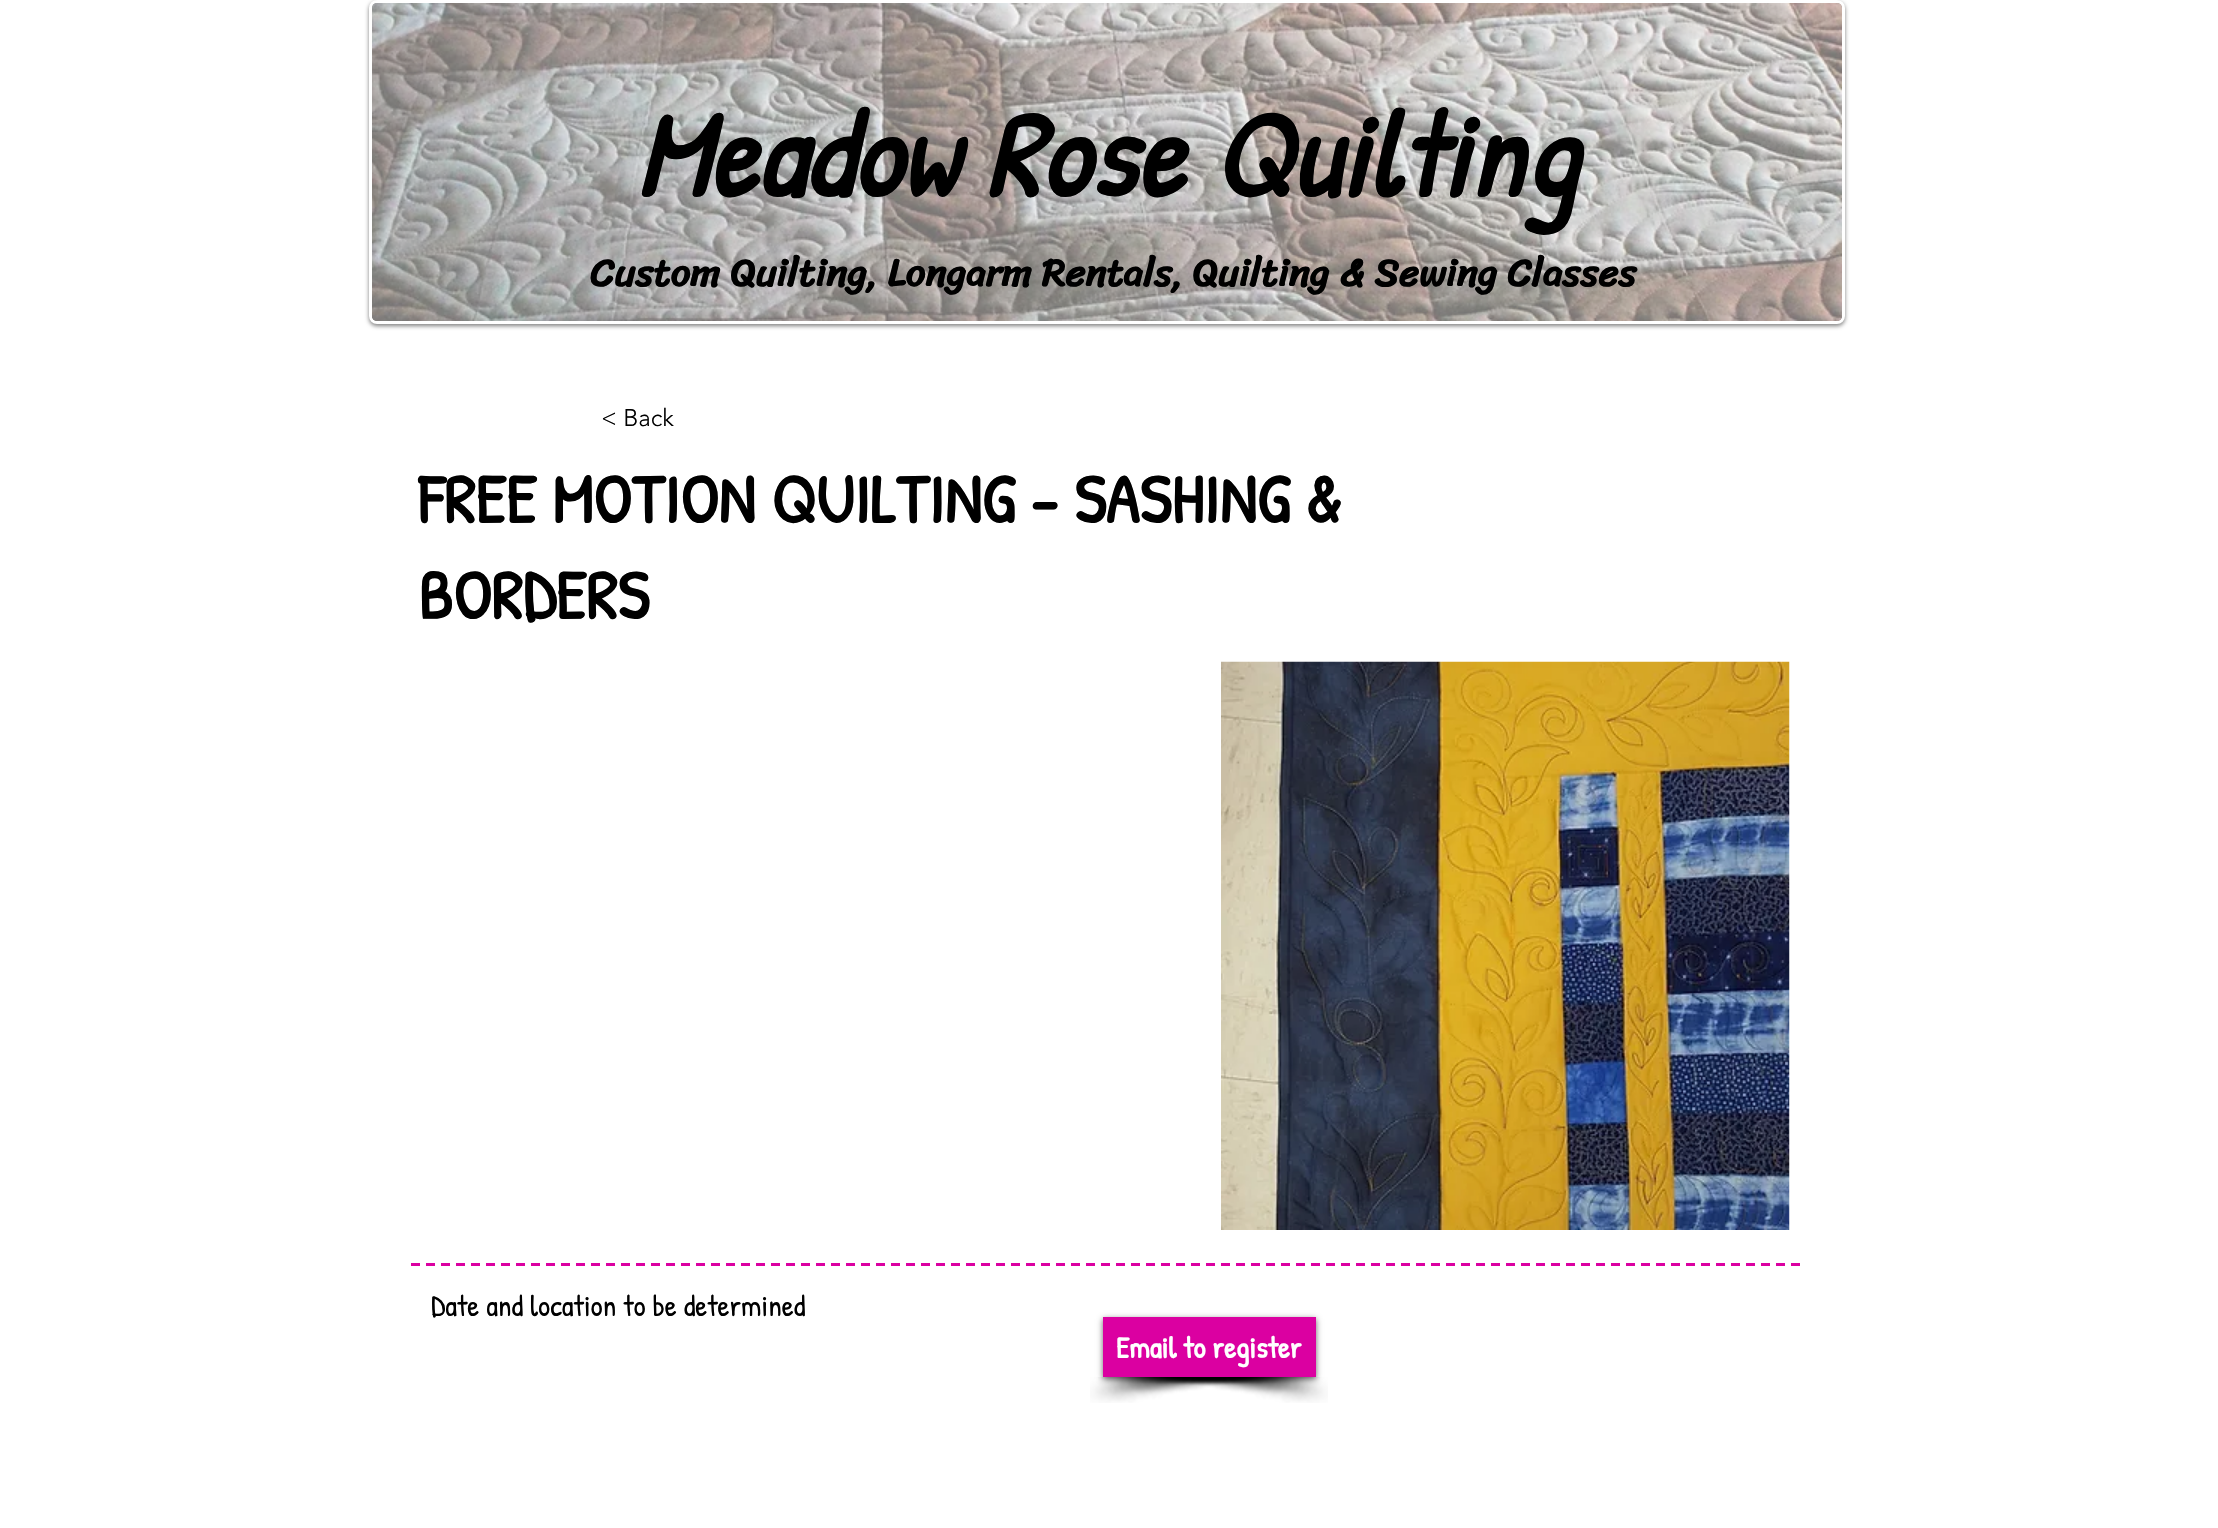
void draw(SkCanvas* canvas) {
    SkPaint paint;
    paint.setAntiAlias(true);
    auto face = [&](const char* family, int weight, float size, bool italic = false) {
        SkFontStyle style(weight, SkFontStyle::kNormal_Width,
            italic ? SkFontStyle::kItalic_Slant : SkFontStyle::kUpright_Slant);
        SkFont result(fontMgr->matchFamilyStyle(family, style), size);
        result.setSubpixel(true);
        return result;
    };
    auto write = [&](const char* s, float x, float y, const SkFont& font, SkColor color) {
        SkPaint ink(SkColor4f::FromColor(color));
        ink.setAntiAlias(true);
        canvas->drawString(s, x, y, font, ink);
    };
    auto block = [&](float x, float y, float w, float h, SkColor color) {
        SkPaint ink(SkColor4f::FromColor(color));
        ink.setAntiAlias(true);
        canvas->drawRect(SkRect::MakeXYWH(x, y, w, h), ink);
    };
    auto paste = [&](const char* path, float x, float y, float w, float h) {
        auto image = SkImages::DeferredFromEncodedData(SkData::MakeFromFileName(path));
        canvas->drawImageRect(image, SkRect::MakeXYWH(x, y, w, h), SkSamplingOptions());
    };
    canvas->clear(SK_ColorWHITE);
    paint.setColor(SkColorSetARGB(128, 0, 0, 0));
    paint.setMaskFilter(SkMaskFilter::MakeBlur(kNormal_SkBlurStyle, 2));
    canvas->drawRoundRect(SkRect::MakeXYWH(369, 2, 1476, 324), 8, 8, paint);
    paint.setMaskFilter(nullptr);
    paint.setStyle(SkPaint::kStroke_Style);
    paint.setStrokeWidth(3);
    paint.setColor(SK_ColorWHITE);
    canvas->drawRoundRect(SkRect::MakeXYWH(370.5f, 1.5f, 1473, 321), 6.5f, 6.5f, paint);
    paste("pic1.png", 372, 3, 1470, 318);
    auto kFont1 = face("Patrick Hand", 700, 121.5f, true);
    write("Meadow Rose Quilting", 635, 197, kFont1, SK_ColorBLACK);
    auto kFont2 = face("Sriracha", 700, 39);
    write("Custom Quilting, Longarm Rentals, Quilting & Sewing Classes", 590, 286, kFont2, SK_ColorBLACK);
    auto kFont3 = face("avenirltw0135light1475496", 300, 24);
    write("< Back", 601, 426, kFont3, SK_ColorBLACK);
    auto kFont4 = face("Patrick Hand", 700, 69);
    write("FREE MOTION QUILTING - SASHING &", 418, 523, kFont4, SK_ColorBLACK);
    write("BORDERS", 418, 619, kFont4, SK_ColorBLACK);
    paste("pic2.png", 1221, 661, 569, 569);
    paint.setColor(SkColorSetRGB(219, 0, 161));
    paint.setPathEffect(SkDashPathEffect::Make({{9, 6}}, 0));
    canvas->drawPath(SkPathBuilder().moveTo(411, 1264.5f).lineTo(1800, 1264.5f).detach(), paint);
    paint.setPathEffect(nullptr);
    auto kFont5 = face("Patrick Hand", 400, 30);
    write("Date and location to be determined", 431, 1316, kFont5, SK_ColorBLACK);
    paste("pic3.png", 1090, 1377, 230, 26);
    paste("pic4.png", 1098, 1377, 230, 26);
    paint.setStyle(SkPaint::kFill_Style);
    paint.setColor(SkColorSetARGB(153, 0, 0, 0));
    paint.setMaskFilter(SkMaskFilter::MakeBlur(kNormal_SkBlurStyle, 3));
    canvas->drawRect(SkRect::MakeXYWH(1103, 1319, 213, 60), paint);
    paint.setMaskFilter(nullptr);
    block(1103, 1317, 213, 60, SkColorSetRGB(219, 0, 161));
    auto kFont6 = face("Patrick Hand", 700, 30);
    write("Email to register", 1116, 1358, kFont6, SK_ColorWHITE);
}
